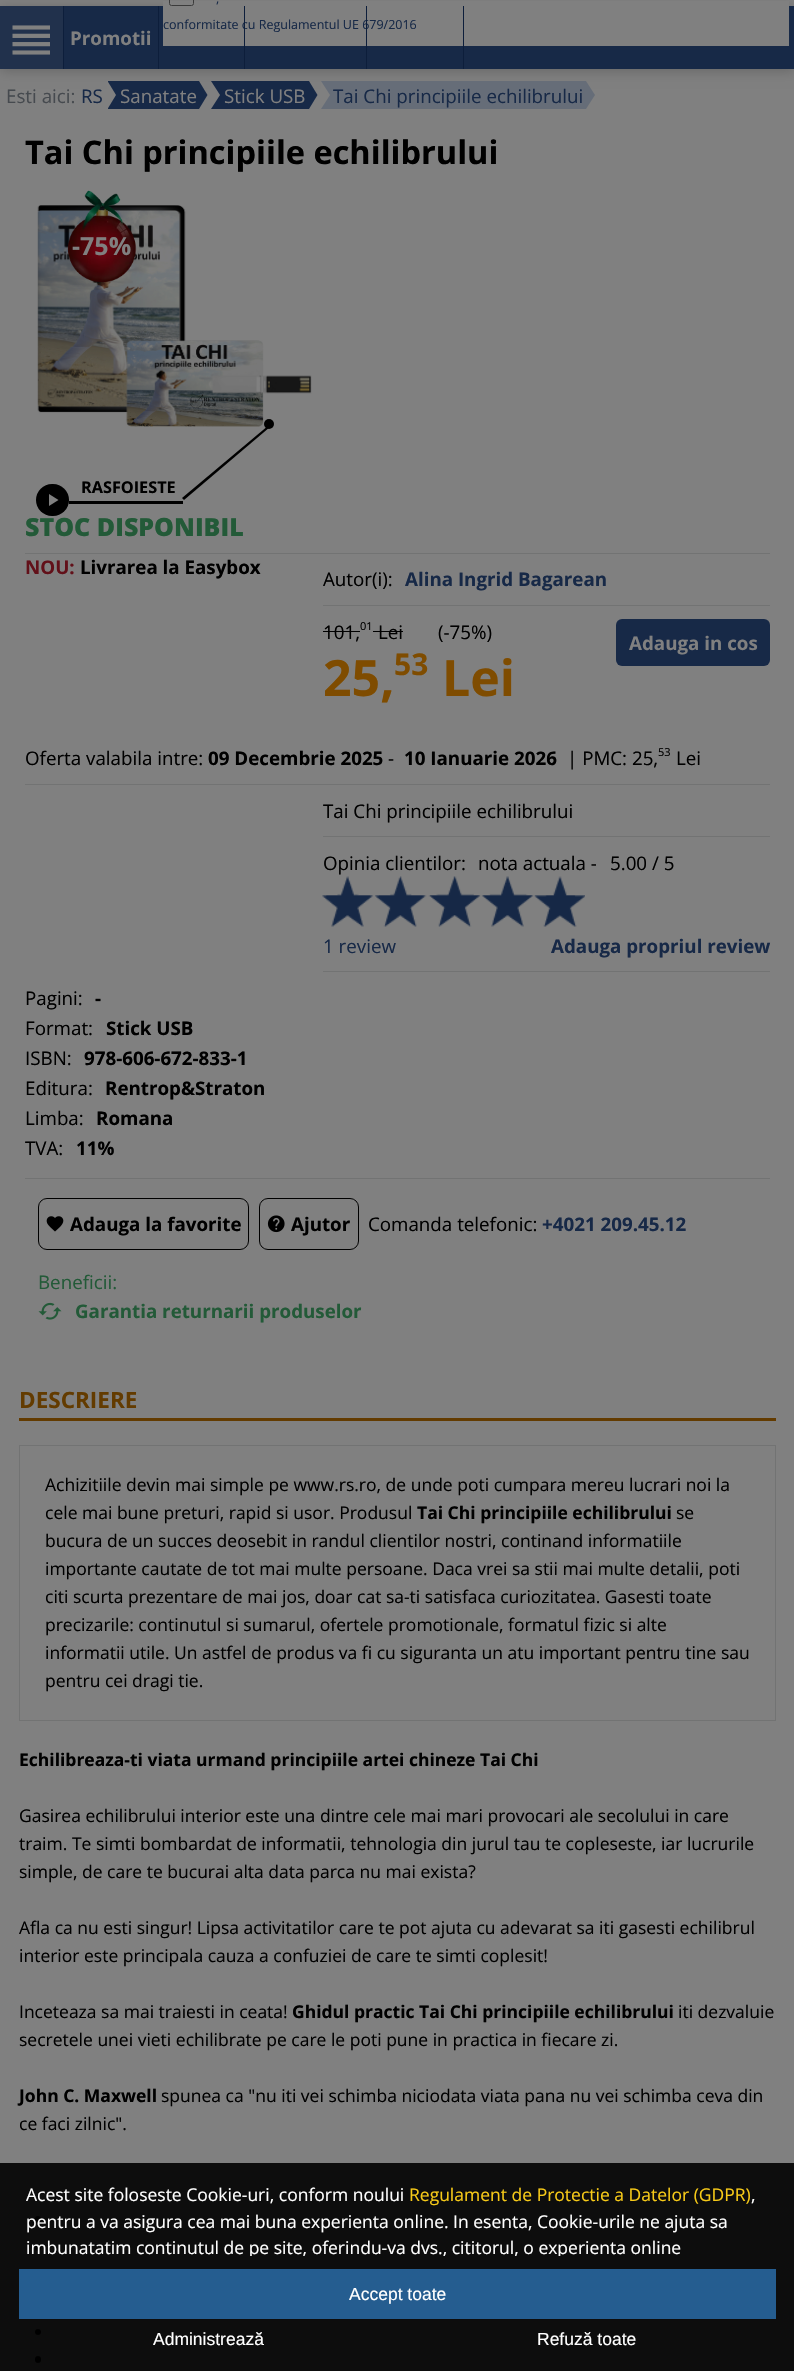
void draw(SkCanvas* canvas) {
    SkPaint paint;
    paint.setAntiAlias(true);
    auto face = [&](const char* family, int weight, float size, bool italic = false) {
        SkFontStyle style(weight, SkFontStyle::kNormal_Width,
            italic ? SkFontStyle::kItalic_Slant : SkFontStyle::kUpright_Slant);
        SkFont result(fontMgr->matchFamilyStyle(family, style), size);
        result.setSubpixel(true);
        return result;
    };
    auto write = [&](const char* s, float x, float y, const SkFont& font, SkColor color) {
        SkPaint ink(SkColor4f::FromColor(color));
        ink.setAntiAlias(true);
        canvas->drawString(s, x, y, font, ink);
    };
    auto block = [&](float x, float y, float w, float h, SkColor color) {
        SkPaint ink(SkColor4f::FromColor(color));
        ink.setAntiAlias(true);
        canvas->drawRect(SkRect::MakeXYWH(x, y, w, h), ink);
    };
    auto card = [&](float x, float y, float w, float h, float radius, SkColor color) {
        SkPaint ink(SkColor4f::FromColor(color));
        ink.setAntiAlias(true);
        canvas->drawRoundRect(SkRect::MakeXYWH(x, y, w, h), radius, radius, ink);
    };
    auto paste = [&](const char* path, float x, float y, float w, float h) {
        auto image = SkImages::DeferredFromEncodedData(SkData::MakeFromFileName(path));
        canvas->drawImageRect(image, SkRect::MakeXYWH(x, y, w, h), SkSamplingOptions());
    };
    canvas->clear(SkColorSetRGB(128, 128, 128));
    block(0, 2163, 794, 208, SkColorSetRGB(13, 13, 13));
    paint.setColor(SkColorSetARGB(51, 0, 0, 0));
    paint.setMaskFilter(SkMaskFilter::MakeBlur(kNormal_SkBlurStyle, 6));
    canvas->drawRect(SkRect::MakeXYWH(0, 9, 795, 62), paint);
    paint.setMaskFilter(nullptr);
    block(64, 6, 730, 63, SkColorSetRGB(23, 41, 71));
    block(163, 1, 626, 45, SkColorSetRGB(128, 128, 128));
    paint.setStyle(SkPaint::kStroke_Style);
    paint.setStrokeWidth(1);
    paint.setColor(SkColorSetRGB(59, 59, 59));
    canvas->drawRoundRect(SkRect::MakeXYWH(169.5f, -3.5f, 24, 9), 2, 2, paint);
    auto kFont1 = face("Open Sans", 400, 12.5f);
    write(",", 216, 3, kFont1, SkColorSetRGB(23, 41, 71));
    write("conformitate cu Regulamentul UE 679/2016", 163, 29, kFont1, SkColorSetRGB(23, 41, 71));
    block(0, 6, 63, 63, SkColorSetRGB(33, 49, 76));
    paste("pic1.png", 12, 25, 38, 30);
    block(63, 6, 1, 63, SkColorSetRGB(13, 30, 59));
    auto kFont2 = face("Open Sans", 700, 18.75f);
    write("Promotii", 70, 45, kFont2, SkColorSetRGB(128, 128, 128));
    block(158, 6, 1, 63, SkColorSetRGB(13, 30, 59));
    block(244, 6, 1, 63, SkColorSetRGB(13, 30, 59));
    block(366, 6, 1, 63, SkColorSetRGB(13, 30, 59));
    block(463, 6, 1, 63, SkColorSetRGB(13, 30, 59));
    auto kFont3 = face("Open Sans", 400, 18.75f);
    write("Esti aici:", 6, 103, kFont3, SkColorSetRGB(70, 74, 79));
    write("RS", 81, 103, kFont3, SkColorSetRGB(23, 41, 71));
    block(108, 81, 91, 28, SkColorSetRGB(23, 41, 71));
    paint.setStyle(SkPaint::kFill_Style);
    paint.setColor(SkColorSetRGB(128, 128, 128));
    canvas->drawPath(SkPathBuilder().moveTo(107.5f, 109).lineTo(107.5f, 81).lineTo(116, 95).close().detach(), paint);
    write("Sanatate", 120, 103, kFont3, SkColorSetRGB(128, 128, 128));
    paint.setColor(SkColorSetRGB(23, 41, 71));
    canvas->drawPath(SkPathBuilder().moveTo(199, 109).lineTo(199, 81).lineTo(207.5f, 95).close().detach(), paint);
    block(211, 81, 98, 28, SkColorSetRGB(23, 41, 71));
    paint.setColor(SkColorSetRGB(128, 128, 128));
    canvas->drawPath(SkPathBuilder().moveTo(211, 109).lineTo(211, 81).lineTo(220, 95).close().detach(), paint);
    write("Stick USB", 224, 103, kFont3, SkColorSetRGB(128, 128, 128));
    paint.setColor(SkColorSetRGB(23, 41, 71));
    canvas->drawPath(SkPathBuilder().moveTo(309, 109).lineTo(309, 81).lineTo(317.5f, 95).close().detach(), paint);
    block(321, 81, 265, 28, SkColorSetRGB(102, 109, 120));
    paint.setColor(SkColorSetRGB(128, 128, 128));
    canvas->drawPath(SkPathBuilder().moveTo(321, 109).lineTo(321, 81).lineTo(330, 95).close().detach(), paint);
    write("Tai Chi principiile echilibrului", 333, 103, kFont3, SkColorSetRGB(23, 41, 71));
    paint.setColor(SkColorSetRGB(102, 109, 120));
    canvas->drawPath(SkPathBuilder().moveTo(586, 109).lineTo(586, 81).lineTo(595, 95).close().detach(), paint);
    auto kFont4 = face("Open Sans", 700, 32.5f);
    write("Tai Chi principiile echilibrului", 25, 164, kFont4, SK_ColorBLACK);
    paste("pic2.png", 37, 205, 275, 222);
    paste("pic3.png", 67, 190, 70, 93);
    auto kFont5 = face("Open Sans", 700, 25);
    write("-75%", 72, 255, kFont5, SkColorSetRGB(128, 128, 128));
    card(36, 484, 33, 32, 16, SK_ColorBLACK);
    paint.setColor(SkColorSetRGB(128, 128, 128));
    canvas->drawPath(SkPathBuilder().moveTo(49, 494).lineTo(58.5f, 500).lineTo(49, 506).close().detach(), paint);
    block(69, 501, 114, 3, SK_ColorBLACK);
    paint.setColor(SK_ColorBLACK);
    canvas->drawPath(SkPathBuilder().moveTo(182, 498).lineTo(269, 425).lineTo(270, 427).lineTo(184, 500).close().detach(), paint);
    canvas->drawCircle(269, 424, 5, paint);
    auto kFont6 = face("Open Sans", 700, 16.25f);
    write("RASFOIESTE", 81, 493, kFont6, SK_ColorBLACK);
    block(25, 553, 745, 1, SkColorSetRGB(114, 115, 115));
    auto kFont7 = face("Open Sans", 800, 25);
    write("STOC DISPONIBIL", 25, 536, kFont7, SkColorSetRGB(35, 90, 56));
    write("NOU:", 25, 574, kFont2, SkColorSetRGB(98, 16, 25));
    write("Livrarea la Easybox", 80, 574, kFont2, SK_ColorBLACK);
    block(323, 605, 447, 1, SkColorSetRGB(114, 115, 115));
    write("Autor(i):", 323, 586, kFont3, SK_ColorBLACK);
    write("Alina Ingrid Bagarean", 405, 586, kFont2, SkColorSetRGB(23, 41, 71));
    write("101,", 323, 639, kFont3, SK_ColorBLACK);
    block(323, 631, 37, 1, SK_ColorBLACK);
    auto kFont8 = face("Open Sans", 400, 11);
    write("01", 360, 630, kFont8, SK_ColorBLACK);
    write("Lei", 378, 639, kFont3, SK_ColorBLACK);
    block(373, 631, 30, 1, SK_ColorBLACK);
    write("(-75%)", 438, 639, kFont3, SK_ColorBLACK);
    card(616, 619, 154, 47, 6, SkColorSetRGB(23, 41, 71));
    write("Adauga in cos", 629, 650, kFont2, SkColorSetRGB(128, 128, 128));
    auto kFont9 = face("Open Sans", 700, 50);
    write("25,", 323, 696, kFont9, SkColorSetRGB(127, 76, 0));
    auto kFont10 = face("Open Sans", 700, 30);
    write("53", 394, 675, kFont10, SkColorSetRGB(127, 76, 0));
    write("Lei", 442, 696, kFont9, SkColorSetRGB(127, 76, 0));
    block(25, 784, 745, 1, SkColorSetRGB(114, 115, 115));
    write("Oferta valabila intre:", 25, 765, kFont3, SK_ColorBLACK);
    write("09 Decembrie 2025", 208, 765, kFont2, SK_ColorBLACK);
    write("-", 388, 765, kFont3, SK_ColorBLACK);
    write("10 Ianuarie 2026", 404, 765, kFont2, SK_ColorBLACK);
    write("| PMC: 25,", 567, 765, kFont3, SK_ColorBLACK);
    write("53", 658, 756, kFont8, SK_ColorBLACK);
    write("Lei", 676, 765, kFont3, SK_ColorBLACK);
    block(323, 836, 447, 1, SkColorSetRGB(114, 115, 115));
    write("Tai Chi principiile echilibrului", 323, 818, kFont3, SK_ColorBLACK);
    block(323, 971, 447, 1, SkColorSetRGB(114, 115, 115));
    write("Opinia clientilor:", 323, 870, kFont3, SK_ColorBLACK);
    write("nota actuala -", 478, 870, kFont3, SK_ColorBLACK);
    write("5.00 / 5", 610, 870, kFont3, SK_ColorBLACK);
    paste("pic4.png", 322, 876, 263, 51);
    write("1 review", 323, 953, kFont3, SkColorSetRGB(23, 41, 71));
    write("Adauga propriul review", 551, 953, kFont2, SkColorSetRGB(23, 41, 71));
    block(25, 1178, 745, 1, SkColorSetRGB(114, 115, 115));
    write("Pagini:", 25, 1005, kFont3, SK_ColorBLACK);
    write("-", 95, 1005, kFont2, SK_ColorBLACK);
    write("Format:", 25, 1035, kFont3, SK_ColorBLACK);
    write("Stick USB", 106, 1035, kFont2, SK_ColorBLACK);
    write("ISBN:", 25, 1065, kFont3, SK_ColorBLACK);
    write("978-606-672-833-1", 84, 1065, kFont2, SK_ColorBLACK);
    write("Editura:", 25, 1095, kFont3, SK_ColorBLACK);
    write("Rentrop&Straton", 105, 1095, kFont2, SK_ColorBLACK);
    write("Limba:", 25, 1125, kFont3, SK_ColorBLACK);
    write("Romana", 96, 1125, kFont2, SK_ColorBLACK);
    write("TVA:", 25, 1155, kFont3, SK_ColorBLACK);
    write("11%", 76, 1155, kFont2, SK_ColorBLACK);
    paint.setStyle(SkPaint::kStroke_Style);
    canvas->drawRoundRect(SkRect::MakeXYWH(38.5f, 1198.5f, 210, 51), 8.5f, 8.5f, paint);
    paste("pic5.png", 46, 1216, 18, 16);
    write("Adauga la favorite", 70, 1231, kFont2, SK_ColorBLACK);
    canvas->drawRoundRect(SkRect::MakeXYWH(259.5f, 1198.5f, 99, 51), 8.5f, 8.5f, paint);
    paste("pic6.png", 267, 1215, 18, 18);
    write("Ajutor", 291, 1231, kFont2, SK_ColorBLACK);
    write("Comanda telefonic:", 368, 1231, kFont3, SK_ColorBLACK);
    write("+4021 209.45.12", 542, 1231, kFont2, SkColorSetRGB(23, 41, 71));
    write("Beneficii:", 38, 1289, kFont3, SkColorSetRGB(35, 90, 56));
    paste("pic7.png", 38, 1302, 24, 18);
    write("Garantia returnarii produselor", 75, 1318, kFont2, SkColorSetRGB(35, 90, 56));
    block(19, 1418, 757, 3, SkColorSetRGB(99, 59, 0));
    auto kFont11 = face("Open Sans", 700, 22.5f);
    write("DESCRIERE", 19, 1408, kFont11, SkColorSetRGB(99, 59, 0));
    paint.setColor(SkColorSetRGB(114, 115, 115));
    canvas->drawRect(SkRect::MakeXYWH(19.5f, 1445.5f, 756, 275), paint);
    auto kFont12 = face("Open Sans", 400, 17.5f);
    write("Achizitiile devin mai simple pe www.rs.ro, de unde poti cumpara mereu lucrari noi la", 45, 1491, kFont12, SK_ColorBLACK);
    write("cele mai bune preturi, rapid si usor. Produsul", 45, 1519, kFont12, SK_ColorBLACK);
    auto kFont13 = face("Open Sans", 700, 17.5f);
    write("Tai Chi principiile echilibrului", 417, 1519, kFont13, SK_ColorBLACK);
    write("se", 676, 1519, kFont12, SK_ColorBLACK);
    write("bucura de un succes deosebit in randul clientilor nostri, continand informatiile", 45, 1547, kFont12, SK_ColorBLACK);
    write("importante cautate de tot mai multe persoane. Daca vrei sa stii mai multe detalii, poti", 45, 1575, kFont12, SK_ColorBLACK);
    write("citi scurta prezentare de mai jos, doar cat sa-ti satisfaca curiozitatea. Gasesti toate", 45, 1603, kFont12, SK_ColorBLACK);
    write("precizarile: continutul si sumarul, ofertele promotionale, formatul fizic si alte", 45, 1631, kFont12, SK_ColorBLACK);
    write("informatii utile. Un astfel de produs va fi cu siguranta un atu important pentru tine sau", 45, 1659, kFont12, SK_ColorBLACK);
    write("pentru cei dragi tie.", 45, 1687, kFont12, SK_ColorBLACK);
    write("Echilibreaza-ti viata urmand principiile artei chineze Tai Chi", 19, 1766, kFont13, SK_ColorBLACK);
    write("Gasirea echilibrului interior este una dintre cele mai mari provocari ale secolului in care", 19, 1822, kFont12, SK_ColorBLACK);
    write("traim. Te simti bombardat de informatii, tehnologia din jurul tau te copleseste, iar lucrurile", 19, 1850, kFont12, SK_ColorBLACK);
    write("simple, de care te bucurai alta data parca nu mai exista?", 19, 1878, kFont12, SK_ColorBLACK);
    write("Afla ca nu esti singur! Lipsa activitatilor care te pot ajuta cu adevarat sa iti gasesti echilibrul", 19, 1934, kFont12, SK_ColorBLACK);
    write("interior este principala cauza a confuziei de care te simti coplesit!", 19, 1962, kFont12, SK_ColorBLACK);
    write("Inceteaza sa mai traiesti in ceata!", 19, 2018, kFont12, SK_ColorBLACK);
    write("Ghidul practic Tai Chi principiile echilibrului", 292, 2018, kFont13, SK_ColorBLACK);
    write("iti dezvaluie", 678, 2018, kFont12, SK_ColorBLACK);
    write("secretele unei vieti echilibrate pe care le poti pune in practica in fiecare zi.", 19, 2046, kFont12, SK_ColorBLACK);
    write("John C. Maxwell", 19, 2102, kFont13, SK_ColorBLACK);
    write("spunea ca \"nu iti vei schimba niciodata viata pana nu vei schimba ceva din", 161, 2102, kFont12, SK_ColorBLACK);
    write("ce faci zilnic\".", 19, 2130, kFont12, SK_ColorBLACK);
    card(35, 2216, 6, 7, 3, SK_ColorBLACK);
    paint.setStyle(SkPaint::kFill_Style);
    paint.setColor(SK_ColorBLACK);
    canvas->drawCircle(38, 2248, 3, paint);
    canvas->drawCircle(38, 2332, 3, paint);
    card(35, 2356, 6, 7, 3, SK_ColorBLACK);
    write("Acest site foloseste Cookie-uri, conform noului", 26, 2201, kFont12, SK_ColorWHITE);
    write("Regulament de Protectie a Datelor (GDPR)", 409, 2201, kFont12, SkColorSetRGB(247, 202, 24));
    write(",", 751, 2201, kFont12, SK_ColorWHITE);
    write("pentru a va asigura cea mai buna experienta online. In esenta, Cookie-urile ne ajuta sa", 26, 2228, kFont12, SK_ColorWHITE);
    canvas->save();
    canvas->clipRect(SkRect::MakeXYWH(19, 2181, 757, 75));
    write("imbunatatim continutul de pe site, oferindu-va dvs., cititorul, o experienta online", 26, 2254, kFont12, SK_ColorWHITE);
    canvas->restore();
    block(19, 2269, 757, 50, SkColorSetRGB(37, 93, 144));
    auto kFont14 = face("Liberation Sans", 400, 17.5f);
    write("Accept toate", 349, 2300, kFont14, SK_ColorWHITE);
    write("Administrează", 153, 2345, kFont14, SK_ColorWHITE);
    write("Refuză toate", 537, 2345, kFont14, SK_ColorWHITE);
}
